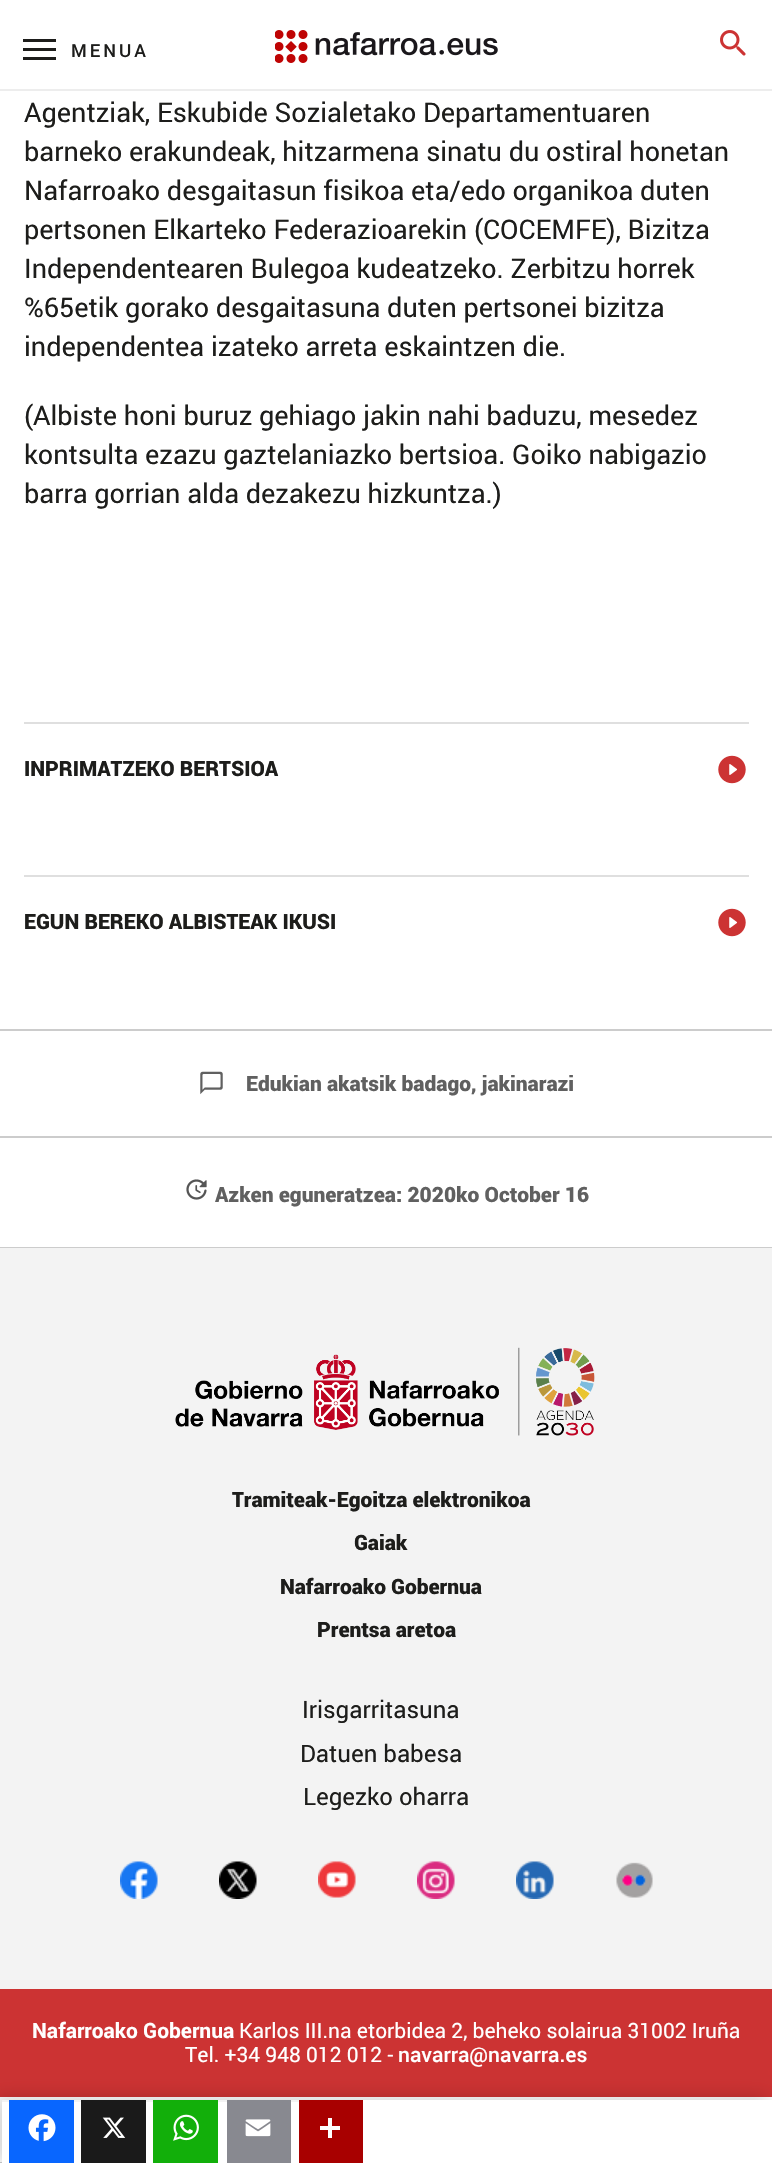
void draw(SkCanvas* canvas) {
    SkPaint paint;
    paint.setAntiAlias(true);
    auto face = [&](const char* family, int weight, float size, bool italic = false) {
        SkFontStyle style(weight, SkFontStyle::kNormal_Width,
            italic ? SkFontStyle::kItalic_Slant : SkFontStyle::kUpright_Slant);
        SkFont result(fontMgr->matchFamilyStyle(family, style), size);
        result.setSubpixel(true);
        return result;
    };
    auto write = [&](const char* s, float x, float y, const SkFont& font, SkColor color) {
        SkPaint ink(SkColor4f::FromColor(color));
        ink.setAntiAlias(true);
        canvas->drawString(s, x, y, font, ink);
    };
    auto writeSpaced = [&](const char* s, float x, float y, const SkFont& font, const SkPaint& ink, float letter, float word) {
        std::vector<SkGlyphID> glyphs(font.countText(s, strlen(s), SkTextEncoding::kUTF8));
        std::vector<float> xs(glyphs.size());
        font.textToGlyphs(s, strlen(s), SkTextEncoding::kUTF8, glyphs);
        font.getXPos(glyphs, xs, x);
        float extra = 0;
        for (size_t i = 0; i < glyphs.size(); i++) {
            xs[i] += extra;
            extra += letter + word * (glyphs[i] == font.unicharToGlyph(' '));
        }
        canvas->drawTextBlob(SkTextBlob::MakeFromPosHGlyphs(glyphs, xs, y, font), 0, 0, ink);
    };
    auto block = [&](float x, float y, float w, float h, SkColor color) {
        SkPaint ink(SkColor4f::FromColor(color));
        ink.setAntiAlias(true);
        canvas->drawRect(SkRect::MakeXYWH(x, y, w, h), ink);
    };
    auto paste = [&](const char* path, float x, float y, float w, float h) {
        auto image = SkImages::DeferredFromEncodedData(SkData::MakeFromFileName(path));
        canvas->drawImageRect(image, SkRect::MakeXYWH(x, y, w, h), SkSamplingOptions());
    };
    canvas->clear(SK_ColorWHITE);
    block(23, 39, 33, 3, SkColorSetRGB(29, 29, 27));
    block(23, 48, 33, 3, SkColorSetRGB(29, 29, 27));
    auto kFont1 = face("Roboto", 500, 18);
    paint.setColor(SkColorSetRGB(29, 29, 27));
    writeSpaced("MENUA", 71, 57, kFont1, paint, 3, 0);
    block(23, 57, 33, 3, SkColorSetRGB(29, 29, 27));
    paste("pic1.png", 275, 30, 223, 33);
    paste("pic2.png", 720, 30, 26, 26);
    block(0, 89, 772, 2, SkColorSetRGB(237, 237, 237));
    auto kFont2 = face("Roboto", 400, 27);
    write("Agentziak, Eskubide Sozialetako Departamentuaren", 24, 122, kFont2, SkColorSetRGB(29, 29, 27));
    write("barneko erakundeak, hitzarmena sinatu du ostiral honetan", 24, 161, kFont2, SkColorSetRGB(29, 29, 27));
    write("Nafarroako desgaitasun fisikoa eta/edo organikoa duten", 24, 200, kFont2, SkColorSetRGB(29, 29, 27));
    write("pertsonen Elkarteko Federazioarekin (COCEMFE), Bizitza", 24, 239, kFont2, SkColorSetRGB(29, 29, 27));
    write("Independentearen Bulegoa kudeatzeko. Zerbitzu horrek", 24, 278, kFont2, SkColorSetRGB(29, 29, 27));
    write("%65etik gorako desgaitasuna duten pertsonei bizitza", 24, 317, kFont2, SkColorSetRGB(29, 29, 27));
    write("independentea izateko arreta eskaintzen die.", 24, 356, kFont2, SkColorSetRGB(29, 29, 27));
    write("(Albiste honi buruz gehiago jakin nahi baduzu, mesedez", 24, 425, kFont2, SkColorSetRGB(29, 29, 27));
    write("kontsulta ezazu gaztelaniazko bertsioa. Goiko nabigazio", 24, 464, kFont2, SkColorSetRGB(29, 29, 27));
    write("barra gorrian alda dezakezu hizkuntza.)", 24, 503, kFont2, SkColorSetRGB(29, 29, 27));
    block(24, 722, 725, 2, SkColorSetRGB(223, 223, 223));
    auto kFont3 = face("Roboto", 900, 21);
    write("INPRIMATZEKO BERTSIOA", 24, 776, kFont3, SkColorSetRGB(29, 29, 27));
    paste("pic3.png", 718, 755, 28, 29);
    block(24, 875, 725, 2, SkColorSetRGB(223, 223, 223));
    write("EGUN BEREKO ALBISTEAK IKUSI", 24, 929, kFont3, SkColorSetRGB(29, 29, 27));
    paste("pic3.png", 718, 908, 28, 29);
    block(0, 2162, 2, 1, SkColorSetRGB(204, 204, 204));
    block(0, 1989, 772, 108, SkColorSetRGB(204, 51, 51));
    paint.setColor(SkColorSetARGB(46, 0, 0, 0));
    paint.setMaskFilter(SkMaskFilter::MakeBlur(kNormal_SkBlurStyle, 9));
    canvas->drawRect(SkRect::MakeXYWH(-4, 2097, 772, 65), paint);
    paint.setMaskFilter(nullptr);
    block(2, 2100, 770, 63, SK_ColorWHITE);
    block(2, 2100, 7, 2, SkColorSetRGB(243, 243, 243));
    block(9, 2100, 65, 63, SkColorSetRGB(8, 102, 255));
    paste("pic4.png", 28, 2114, 28, 28);
    block(74, 2100, 7, 2, SkColorSetRGB(243, 243, 243));
    block(81, 2100, 65, 63, SkColorSetRGB(26, 26, 26));
    paste("pic5.png", 102, 2117, 24, 21);
    block(146, 2100, 7, 2, SkColorSetRGB(243, 243, 243));
    block(153, 2100, 65, 63, SkColorSetRGB(18, 175, 10));
    paste("pic6.png", 173, 2114, 26, 27);
    block(218, 2100, 9, 2, SkColorSetRGB(243, 243, 243));
    block(227, 2100, 64, 63, SkColorSetRGB(136, 137, 144));
    paste("pic7.png", 245, 2119, 26, 18);
    block(291, 2100, 8, 2, SkColorSetRGB(243, 243, 243));
    block(299, 2100, 64, 63, SkColorSetRGB(168, 0, 0));
    block(328, 2118, 4, 20, SK_ColorWHITE);
    block(320, 2126, 20, 4, SK_ColorWHITE);
    block(0, 1029, 772, 2, SkColorSetRGB(204, 204, 204));
    paste("pic8.png", 200, 1071, 23, 24);
    write("Edukian akatsik badago, jakinarazi", 246, 1091, kFont3, SkColorSetRGB(96, 96, 96));
    block(0, 1136, 772, 2, SkColorSetRGB(204, 204, 204));
    paste("pic9.png", 186, 1179, 21, 21);
    write("Azken eguneratzea: 2020ko October 16", 215, 1202, kFont3, SkColorSetRGB(96, 96, 96));
    block(0, 1247, 772, 1, SkColorSetRGB(204, 204, 204));
    block(0, 1248, 772, 741, SkColorSetRGB(243, 243, 243));
    paste("pic10.png", 175, 1347, 420, 89);
    paint.setColor(SkColorSetRGB(29, 29, 27));
    writeSpaced("Tramiteak-Egoitza elektronikoa", 232, 1507, kFont3, paint, -0.05f, 0);
    writeSpaced("Gaiak", 354, 1550, kFont3, paint, -0.05f, 0);
    writeSpaced("Nafarroako Gobernua", 280, 1594, kFont3, paint, -0.05f, 0);
    writeSpaced("Prentsa aretoa", 317, 1637, kFont3, paint, -0.05f, 0);
    auto kFont4 = face("Roboto", 400, 24);
    write("Irisgarritasuna", 302, 1718, kFont4, SkColorSetRGB(29, 29, 27));
    write("Datuen babesa", 300, 1762, kFont4, SkColorSetRGB(29, 29, 27));
    write("Legezko oharra", 303, 1805, kFont4, SkColorSetRGB(29, 29, 27));
    paste("pic11.png", 120, 1861, 38, 38);
    paste("pic12.png", 219, 1861, 38, 38);
    paste("pic13.png", 318, 1861, 38, 37);
    paste("pic14.png", 417, 1861, 38, 38);
    paste("pic15.png", 516, 1861, 38, 38);
    paste("pic16.png", 616, 1862, 37, 36);
    auto kFont5 = face("Roboto", 700, 21);
    write("Nafarroako Gobernua", 32, 2038, kFont5, SK_ColorWHITE);
    auto kFont6 = face("Roboto", 400, 21);
    write("Karlos III.na etorbidea 2, beheko solairua 31002 Iruña", 239, 2038, kFont6, SK_ColorWHITE);
    write("Tel. +34 948 012 012 -", 185, 2062, kFont6, SK_ColorWHITE);
    auto kFont7 = face("Roboto", 500, 21);
    write("navarra@navarra.es", 398, 2062, kFont7, SK_ColorWHITE);
}
